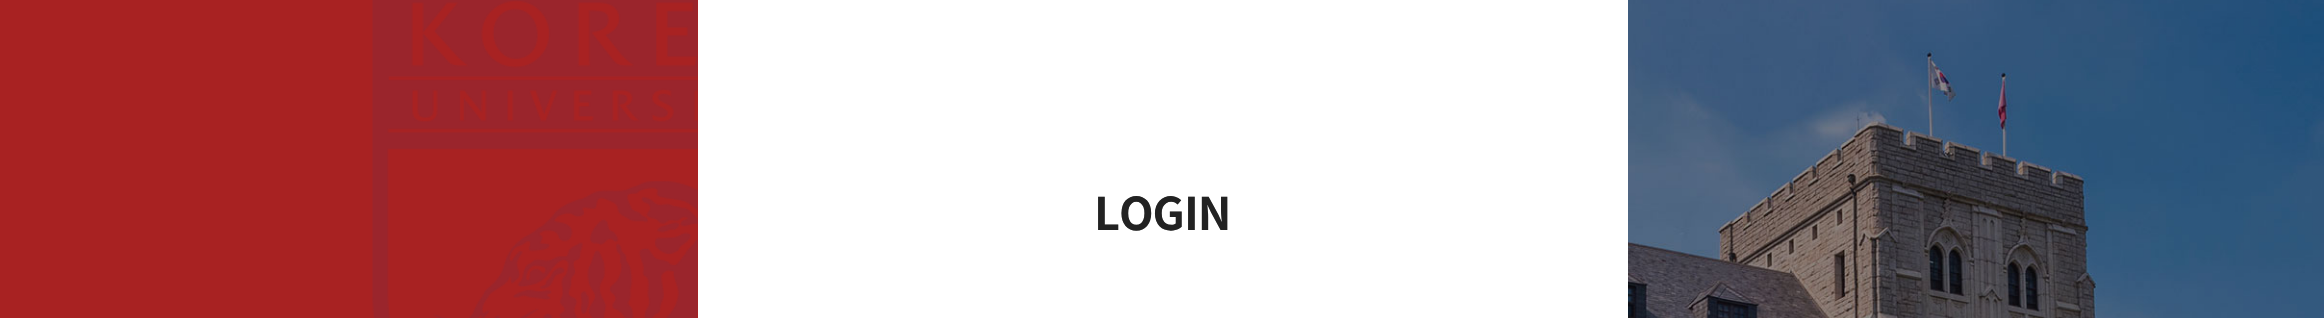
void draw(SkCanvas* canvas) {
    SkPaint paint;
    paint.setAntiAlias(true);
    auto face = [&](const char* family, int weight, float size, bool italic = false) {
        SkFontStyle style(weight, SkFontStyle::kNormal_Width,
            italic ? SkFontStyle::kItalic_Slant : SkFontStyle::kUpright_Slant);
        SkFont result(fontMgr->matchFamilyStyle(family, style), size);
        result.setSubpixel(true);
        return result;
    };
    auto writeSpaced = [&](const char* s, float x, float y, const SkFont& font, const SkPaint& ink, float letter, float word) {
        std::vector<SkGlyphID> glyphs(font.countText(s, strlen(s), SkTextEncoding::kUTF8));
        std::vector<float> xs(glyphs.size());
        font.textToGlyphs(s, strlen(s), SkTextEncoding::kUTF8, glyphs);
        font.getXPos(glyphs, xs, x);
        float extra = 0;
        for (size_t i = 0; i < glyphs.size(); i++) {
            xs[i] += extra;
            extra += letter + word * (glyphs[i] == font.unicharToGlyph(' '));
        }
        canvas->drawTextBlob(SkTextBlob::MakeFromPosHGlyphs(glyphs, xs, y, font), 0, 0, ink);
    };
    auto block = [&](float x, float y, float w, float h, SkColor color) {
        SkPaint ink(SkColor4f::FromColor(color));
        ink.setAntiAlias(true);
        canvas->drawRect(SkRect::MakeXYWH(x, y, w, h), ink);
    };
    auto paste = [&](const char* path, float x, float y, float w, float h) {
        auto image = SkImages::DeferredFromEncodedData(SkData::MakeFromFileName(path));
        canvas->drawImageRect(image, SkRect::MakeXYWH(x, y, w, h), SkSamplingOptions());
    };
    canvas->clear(SkColorSetRGB(168, 34, 34));
    paste("pic1.png", 372, 0, 326, 318);
    block(698, 0, 930, 318, SK_ColorWHITE);
    auto kFont1 = face("Noto Sans KR", 700, 45);
    paint.setColor(SkColorSetRGB(34, 34, 34));
    writeSpaced("LOGIN", 1094, 230, kFont1, paint, -1, 0);
    paste("pic2.png", 1628, 0, 696, 318);
}
